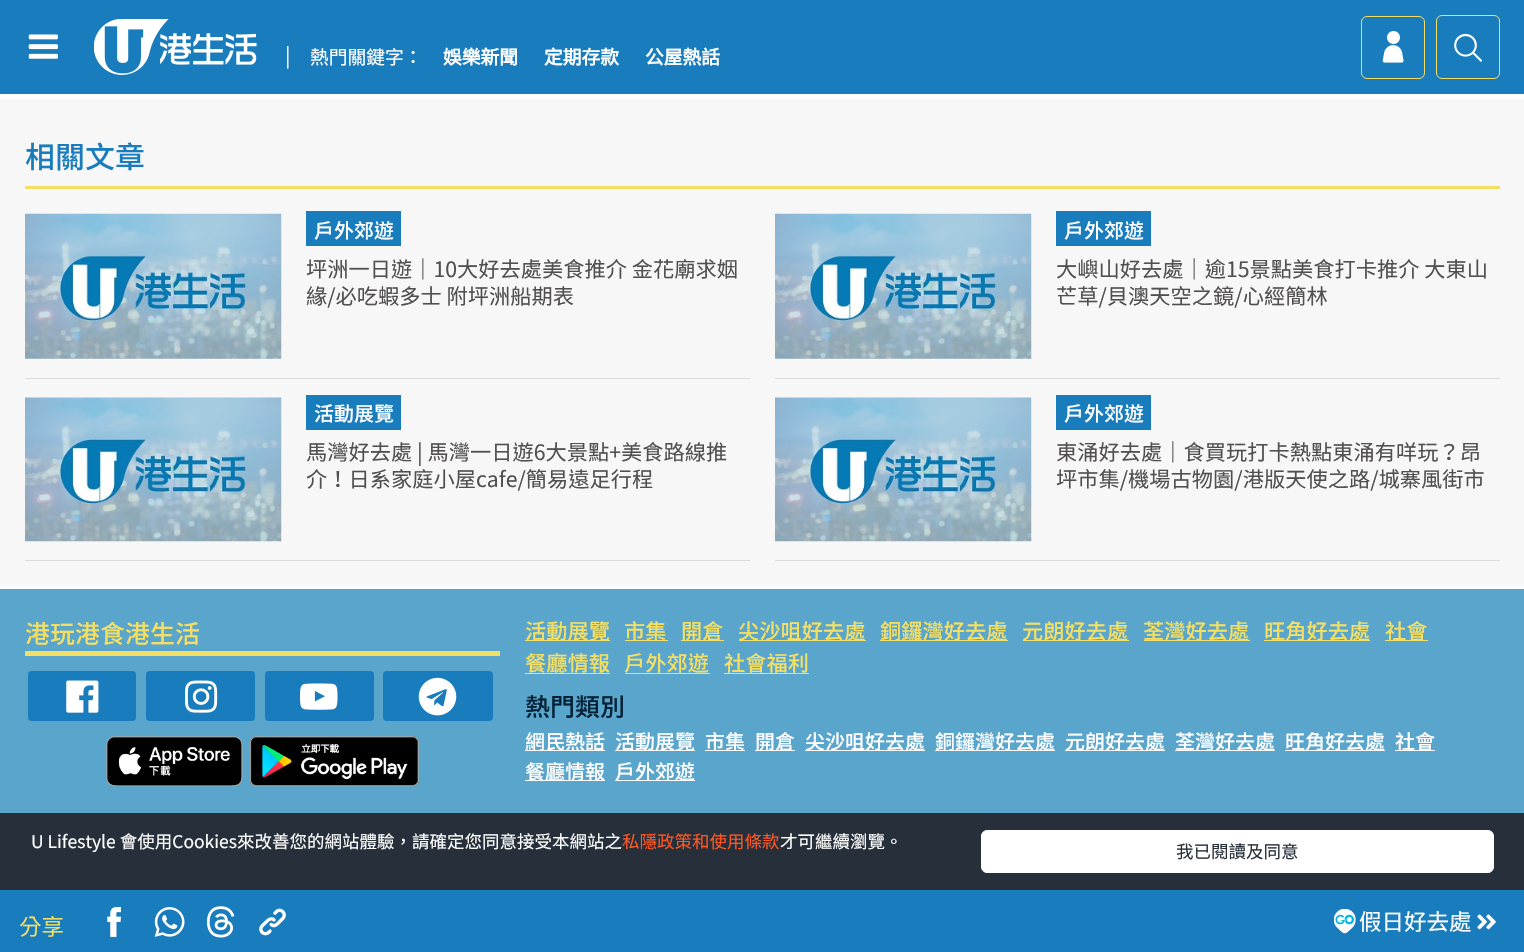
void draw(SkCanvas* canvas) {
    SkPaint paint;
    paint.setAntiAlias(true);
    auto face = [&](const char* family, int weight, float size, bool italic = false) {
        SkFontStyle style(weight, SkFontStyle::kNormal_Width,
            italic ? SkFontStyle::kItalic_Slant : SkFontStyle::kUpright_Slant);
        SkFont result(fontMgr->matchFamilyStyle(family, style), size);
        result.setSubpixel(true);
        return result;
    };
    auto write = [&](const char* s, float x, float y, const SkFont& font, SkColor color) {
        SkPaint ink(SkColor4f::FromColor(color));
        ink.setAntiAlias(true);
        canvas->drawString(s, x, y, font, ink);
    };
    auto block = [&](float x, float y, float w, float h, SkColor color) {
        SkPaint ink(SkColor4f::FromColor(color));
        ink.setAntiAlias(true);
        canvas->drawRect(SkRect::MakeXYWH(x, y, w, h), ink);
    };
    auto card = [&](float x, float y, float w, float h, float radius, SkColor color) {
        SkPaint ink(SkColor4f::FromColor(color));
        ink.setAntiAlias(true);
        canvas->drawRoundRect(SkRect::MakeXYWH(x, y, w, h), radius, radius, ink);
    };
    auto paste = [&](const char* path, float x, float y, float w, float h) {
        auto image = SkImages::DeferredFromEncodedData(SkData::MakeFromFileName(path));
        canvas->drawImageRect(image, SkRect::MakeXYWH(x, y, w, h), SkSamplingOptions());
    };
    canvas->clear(SK_ColorWHITE);
    block(0, 0, 1524, 94, SkColorSetRGB(25, 124, 188));
    paste("pic1.png", 28, 34, 30, 25);
    paste("pic2.png", 94, 19, 163, 56);
    auto kFont1 = face("Noto Sans TC", 400, 20);
    write("|", 285, 63, kFont1, SK_ColorWHITE);
    auto kFont2 = face("Noto Sans CJK HK", 400, 18.75f);
    write("熱門關鍵字：", 310, 64, kFont2, SK_ColorWHITE);
    auto kFont3 = face("Noto Sans CJK HK", 700, 18.75f);
    write("娛樂新聞", 443, 64, kFont3, SK_ColorWHITE);
    write("定期存款", 544, 64, kFont3, SK_ColorWHITE);
    write("公屋熱話", 645, 64, kFont3, SK_ColorWHITE);
    paint.setStyle(SkPaint::kStroke_Style);
    paint.setStrokeWidth(1);
    paint.setColor(SkColorSetRGB(245, 223, 99));
    canvas->drawRoundRect(SkRect::MakeXYWH(1361.5f, 16.5f, 63, 62), 5.5f, 5.5f, paint);
    paste("pic3.png", 1382, 31, 22, 32);
    canvas->drawRoundRect(SkRect::MakeXYWH(1436.5f, 15.5f, 63, 63), 5.5f, 5.5f, paint);
    paste("pic4.png", 1454, 33, 28, 29);
    block(0, 99, 1524, 487, SkColorSetRGB(247, 247, 247));
    block(25, 186, 1475, 3, SkColorSetRGB(245, 223, 99));
    auto kFont4 = face("Noto Sans TC", 500, 30);
    write("相關文章", 25, 168, kFont4, SkColorSetRGB(25, 124, 188));
    block(25, 378, 725, 1, SkColorSetRGB(218, 219, 218));
    paste("pic5.png", 25, 213, 257, 146);
    block(306, 211, 95, 35, SkColorSetRGB(25, 124, 188));
    auto kFont5 = face("Noto Sans TC", 500, 20);
    write("戶外郊遊", 314, 238, kFont5, SK_ColorWHITE);
    auto kFont6 = face("Noto Sans TC", 400, 21.25f);
    write("坪洲一日遊｜10大好去處美食推介 金花廟求姻", 306, 277, kFont6, SkColorSetRGB(81, 79, 80));
    write("緣/必吃蝦多士 附坪洲船期表", 306, 304, kFont6, SkColorSetRGB(81, 79, 80));
    block(775, 378, 725, 1, SkColorSetRGB(218, 219, 218));
    paste("pic5.png", 775, 213, 257, 146);
    block(1056, 211, 95, 35, SkColorSetRGB(25, 124, 188));
    write("戶外郊遊", 1064, 238, kFont5, SK_ColorWHITE);
    write("大嶼山好去處｜逾15景點美食打卡推介 大東山", 1056, 277, kFont6, SkColorSetRGB(81, 79, 80));
    write("芒草/貝澳天空之鏡/心經簡林", 1056, 304, kFont6, SkColorSetRGB(81, 79, 80));
    block(25, 560, 725, 1, SkColorSetRGB(218, 219, 218));
    paste("pic6.png", 25, 397, 257, 145);
    block(306, 395, 95, 35, SkColorSetRGB(25, 124, 188));
    write("活動展覽", 314, 421, kFont5, SK_ColorWHITE);
    write("馬灣好去處 | 馬灣一日遊6大景點+美食路線推", 306, 460, kFont6, SkColorSetRGB(81, 79, 80));
    write("介！日系家庭小屋cafe/簡易遠足行程", 306, 487, kFont6, SkColorSetRGB(81, 79, 80));
    block(775, 560, 725, 1, SkColorSetRGB(218, 219, 218));
    paste("pic6.png", 775, 397, 257, 145);
    block(1056, 395, 95, 35, SkColorSetRGB(25, 124, 188));
    write("戶外郊遊", 1064, 421, kFont5, SK_ColorWHITE);
    write("東涌好去處｜食買玩打卡熱點東涌有咩玩？昂", 1056, 460, kFont6, SkColorSetRGB(81, 79, 80));
    write("坪市集/機場古物園/港版天使之路/城寨風街市", 1056, 487, kFont6, SkColorSetRGB(81, 79, 80));
    block(0, 586, 1524, 1, SkColorSetRGB(248, 249, 250));
    block(0, 588, 1524, 1, SkColorSetRGB(248, 249, 250));
    block(0, 589, 1524, 224, SkColorSetRGB(89, 165, 204));
    block(25, 651, 475, 5, SkColorSetRGB(245, 223, 99));
    auto kFont7 = face("Noto Sans TC", 500, 25);
    write("港玩港食港生活", 25, 643, kFont7, SkColorSetRGB(245, 223, 99));
    card(28, 671, 108, 50, 4, SkColorSetRGB(25, 124, 188));
    paste("pic7.png", 66, 680, 33, 33);
    card(146, 671, 109, 50, 4, SkColorSetRGB(25, 124, 188));
    paste("pic8.png", 185, 680, 33, 33);
    card(265, 671, 109, 50, 4, SkColorSetRGB(25, 124, 188));
    paste("pic9.png", 300, 683, 38, 27);
    card(383, 671, 110, 50, 4, SkColorSetRGB(25, 124, 188));
    paste("pic10.png", 418, 677, 39, 39);
    paste("pic11.png", 106, 736, 137, 51);
    paste("pic12.png", 250, 736, 169, 51);
    block(525, 640, 85, 1, SkColorSetRGB(245, 223, 99));
    auto kFont8 = face("Noto Sans TC", 500, 21.25f);
    write("活動展覽", 525, 639, kFont8, SkColorSetRGB(245, 223, 99));
    block(625, 640, 43, 1, SkColorSetRGB(245, 223, 99));
    write("市集", 624, 639, kFont8, SkColorSetRGB(245, 223, 99));
    block(681, 640, 43, 1, SkColorSetRGB(245, 223, 99));
    write("開倉", 681, 639, kFont8, SkColorSetRGB(245, 223, 99));
    block(739, 640, 127, 1, SkColorSetRGB(245, 223, 99));
    write("尖沙咀好去處", 738, 639, kFont8, SkColorSetRGB(245, 223, 99));
    block(880, 640, 128, 1, SkColorSetRGB(245, 223, 99));
    write("銅鑼灣好去處", 880, 639, kFont8, SkColorSetRGB(245, 223, 99));
    block(1023, 640, 106, 1, SkColorSetRGB(245, 223, 99));
    write("元朗好去處", 1022, 639, kFont8, SkColorSetRGB(245, 223, 99));
    block(1144, 640, 106, 1, SkColorSetRGB(245, 223, 99));
    write("荃灣好去處", 1143, 639, kFont8, SkColorSetRGB(245, 223, 99));
    block(1264, 640, 106, 1, SkColorSetRGB(245, 223, 99));
    write("旺角好去處", 1264, 639, kFont8, SkColorSetRGB(245, 223, 99));
    block(1385, 640, 43, 1, SkColorSetRGB(245, 223, 99));
    write("社會", 1385, 639, kFont8, SkColorSetRGB(245, 223, 99));
    write("餐廳情報", 525, 671, kFont8, SkColorSetRGB(245, 223, 99));
    block(525, 673, 85, 1, SkColorSetRGB(245, 223, 99));
    write("戶外郊遊", 624, 671, kFont8, SkColorSetRGB(245, 223, 99));
    block(625, 673, 85, 1, SkColorSetRGB(245, 223, 99));
    write("社會福利", 724, 671, kFont8, SkColorSetRGB(245, 223, 99));
    block(724, 673, 85, 1, SkColorSetRGB(245, 223, 99));
    write("熱門類別", 525, 716, kFont7, SkColorSetRGB(0, 32, 52));
    block(525, 750, 80, 1, SK_ColorWHITE);
    write("網民熱話", 525, 749, kFont5, SK_ColorWHITE);
    block(615, 750, 80, 1, SK_ColorWHITE);
    write("活動展覽", 615, 749, kFont5, SK_ColorWHITE);
    block(705, 750, 40, 1, SK_ColorWHITE);
    write("市集", 705, 749, kFont5, SK_ColorWHITE);
    block(755, 750, 40, 1, SK_ColorWHITE);
    write("開倉", 755, 749, kFont5, SK_ColorWHITE);
    block(805, 750, 120, 1, SK_ColorWHITE);
    write("尖沙咀好去處", 805, 749, kFont5, SK_ColorWHITE);
    block(935, 750, 120, 1, SK_ColorWHITE);
    write("銅鑼灣好去處", 935, 749, kFont5, SK_ColorWHITE);
    block(1065, 750, 100, 1, SK_ColorWHITE);
    write("元朗好去處", 1065, 749, kFont5, SK_ColorWHITE);
    block(1175, 750, 100, 1, SK_ColorWHITE);
    write("荃灣好去處", 1175, 749, kFont5, SK_ColorWHITE);
    block(1285, 750, 100, 1, SK_ColorWHITE);
    write("旺角好去處", 1285, 749, kFont5, SK_ColorWHITE);
    block(1395, 750, 40, 1, SK_ColorWHITE);
    write("社會", 1395, 749, kFont5, SK_ColorWHITE);
    block(525, 780, 80, 1, SK_ColorWHITE);
    write("餐廳情報", 525, 779, kFont5, SK_ColorWHITE);
    block(615, 780, 80, 1, SK_ColorWHITE);
    write("戶外郊遊", 615, 779, kFont5, SK_ColorWHITE);
    block(0, 890, 1524, 62, SkColorSetRGB(25, 124, 188));
    auto kFont9 = face("Noto Sans TC", 400, 22.5f);
    write("分享", 19, 935, kFont9, SkColorSetRGB(245, 223, 99));
    paste("pic13.png", 107, 907, 14, 30);
    paste("pic14.png", 154, 907, 31, 30);
    paste("pic15.png", 206, 906, 29, 32);
    paste("pic16.png", 259, 908, 27, 28);
    paste("pic17.png", 1334, 909, 22, 25);
    auto kFont10 = face("Noto Sans CJK HK", 400, 22.5f);
    write("假日好去處", 1359, 930, kFont10, SK_ColorWHITE);
    paste("pic18.png", 1477, 914, 19, 16);
    block(0, 813, 1524, 77, SkColorSetRGB(38, 47, 58));
    auto kFont11 = face("Noto Sans TC", 400, 17.5f);
    write("U Lifestyle 會使用Cookies來改善您的網站體驗，請確定您同意接受本網站之", 31, 848, kFont11, SK_ColorWHITE);
    write("私隱政策和使用條款", 622, 848, kFont11, SkColorSetRGB(255, 87, 34));
    write("才可繼續瀏覽。", 780, 848, kFont11, SK_ColorWHITE);
    paint.setStyle(SkPaint::kFill_Style);
    paint.setColor(SK_ColorWHITE);
    canvas->drawRoundRect(SkRect::MakeXYWH(981.5f, 830.5f, 512, 42), 5.5f, 5.5f, paint);
    paint.setStyle(SkPaint::kStroke_Style);
    canvas->drawRoundRect(SkRect::MakeXYWH(981.5f, 830.5f, 512, 42), 5.5f, 5.5f, paint);
    write("我已閱讀及同意", 1176, 858, kFont11, SkColorSetRGB(38, 47, 58));
}
